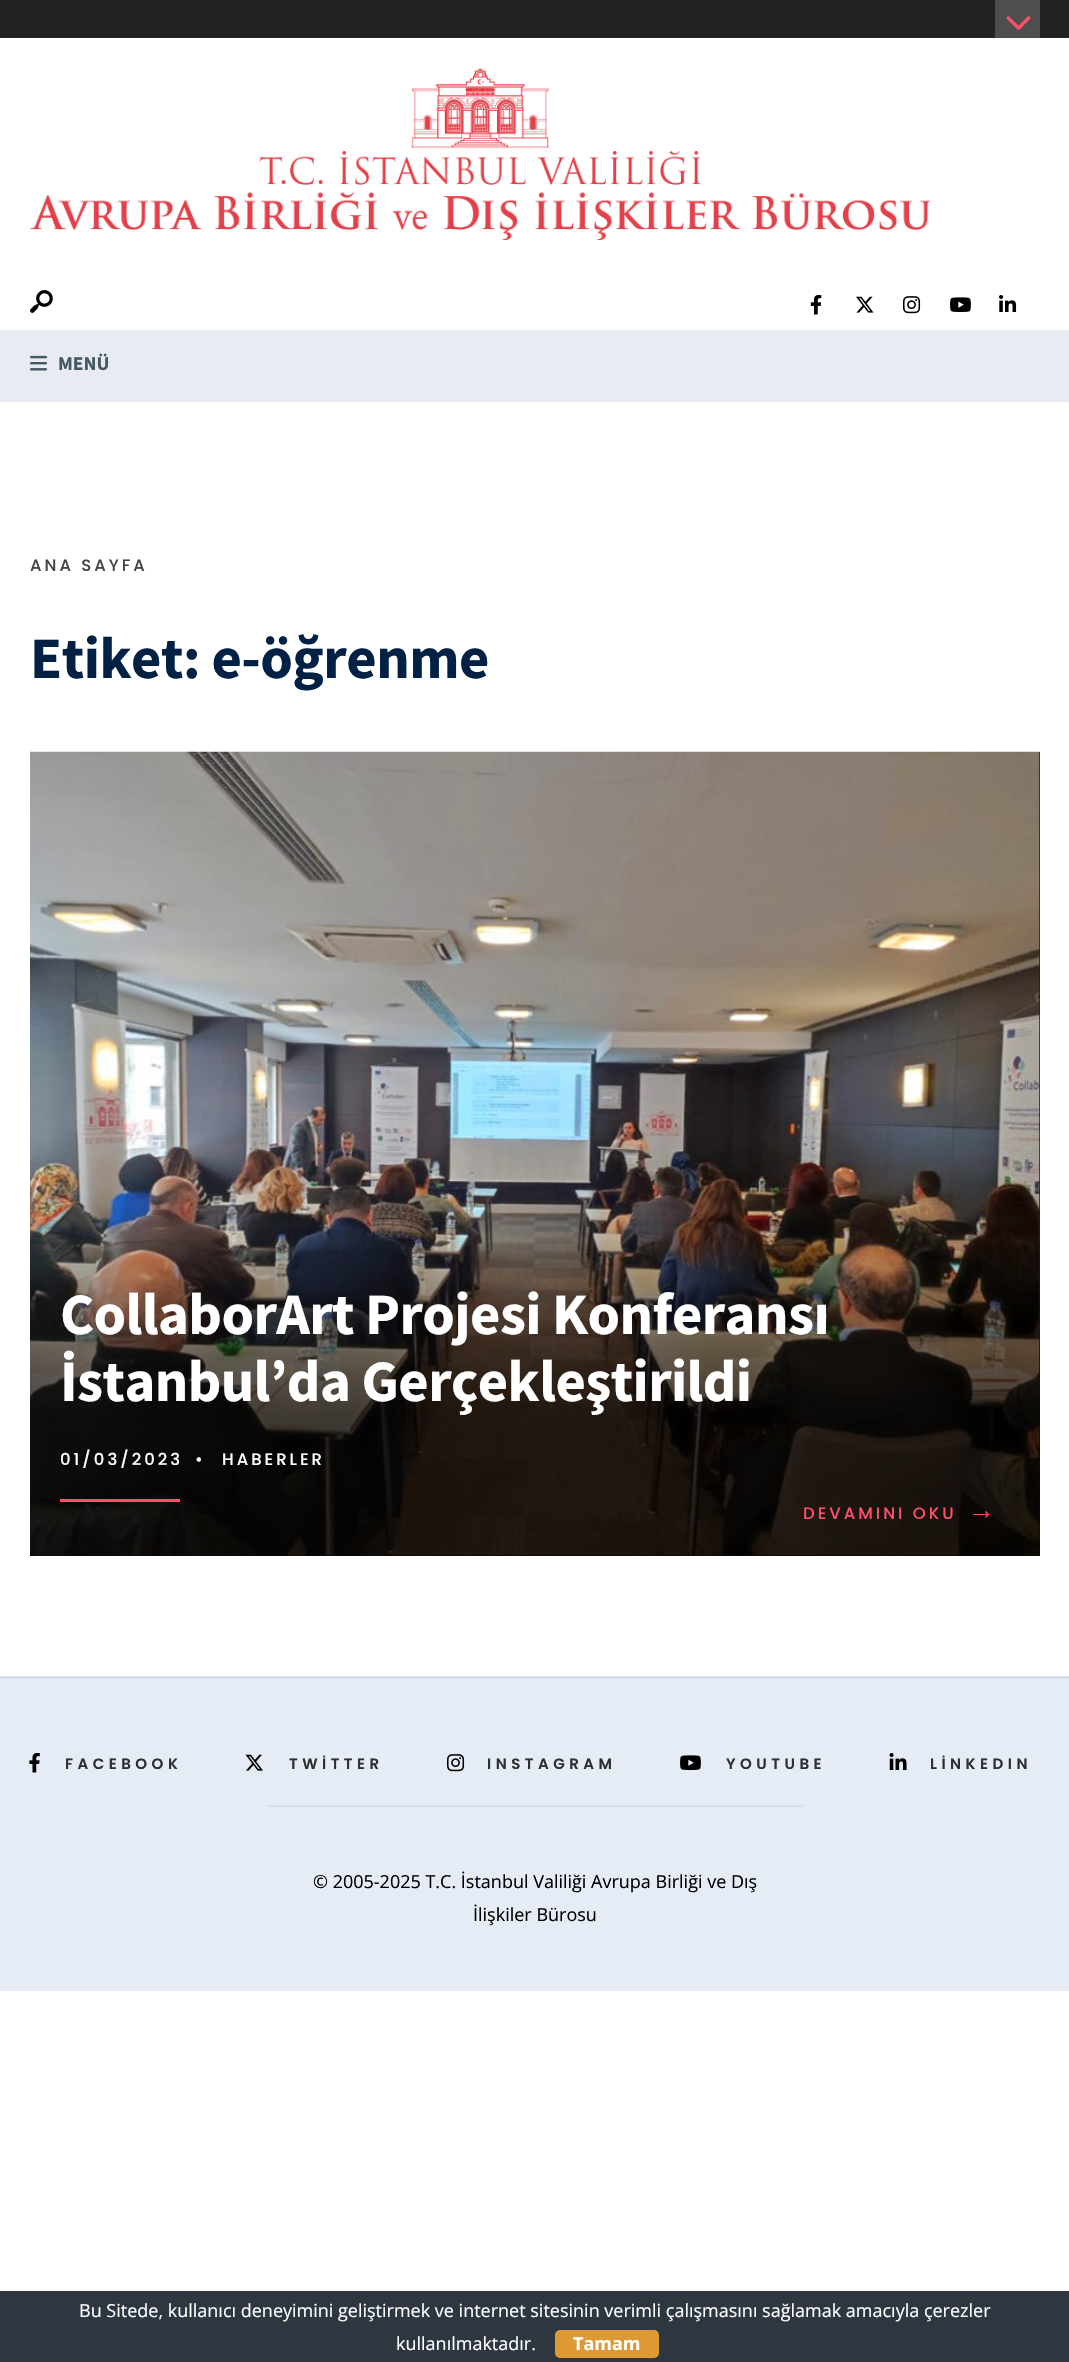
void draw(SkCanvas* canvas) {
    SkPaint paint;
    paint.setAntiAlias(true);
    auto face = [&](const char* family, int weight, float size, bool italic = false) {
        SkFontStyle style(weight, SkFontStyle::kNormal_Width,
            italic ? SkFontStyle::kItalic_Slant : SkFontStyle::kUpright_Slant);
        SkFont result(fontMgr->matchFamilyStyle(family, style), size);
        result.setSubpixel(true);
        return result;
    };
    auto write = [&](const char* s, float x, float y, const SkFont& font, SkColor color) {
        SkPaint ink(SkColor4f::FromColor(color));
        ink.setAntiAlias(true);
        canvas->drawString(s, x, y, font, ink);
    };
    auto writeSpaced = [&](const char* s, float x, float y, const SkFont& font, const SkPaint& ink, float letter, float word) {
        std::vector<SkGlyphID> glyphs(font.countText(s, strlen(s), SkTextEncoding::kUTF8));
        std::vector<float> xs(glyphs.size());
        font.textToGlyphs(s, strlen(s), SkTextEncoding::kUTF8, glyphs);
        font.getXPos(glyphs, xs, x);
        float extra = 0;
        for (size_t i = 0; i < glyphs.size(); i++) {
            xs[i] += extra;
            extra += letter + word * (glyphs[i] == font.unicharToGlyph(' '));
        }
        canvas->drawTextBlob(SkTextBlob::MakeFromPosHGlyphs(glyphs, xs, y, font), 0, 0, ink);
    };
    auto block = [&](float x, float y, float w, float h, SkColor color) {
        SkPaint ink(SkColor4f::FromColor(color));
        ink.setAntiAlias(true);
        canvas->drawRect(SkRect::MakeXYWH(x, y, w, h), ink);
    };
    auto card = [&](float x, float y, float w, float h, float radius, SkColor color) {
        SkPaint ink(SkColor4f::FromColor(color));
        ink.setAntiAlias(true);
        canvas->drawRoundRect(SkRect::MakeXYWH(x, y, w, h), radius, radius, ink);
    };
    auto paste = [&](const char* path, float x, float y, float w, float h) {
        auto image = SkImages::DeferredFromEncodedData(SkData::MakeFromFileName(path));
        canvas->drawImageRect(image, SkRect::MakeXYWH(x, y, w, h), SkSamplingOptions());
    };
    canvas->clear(SK_ColorWHITE);
    block(0, 0, 1069, 38, SkColorSetRGB(34, 34, 34));
    block(995, 0, 45, 38, SkColorSetRGB(78, 78, 78));
    paste("pic1.png", 1006, 16, 25, 14);
    paste("pic2.png", 30, 68, 900, 172);
    paste("pic3.png", 30, 290, 23, 23);
    paste("pic4.png", 810, 294, 12, 21);
    paste("pic5.png", 856, 296, 18, 17);
    paste("pic6.png", 903, 296, 18, 18);
    paste("pic7.png", 950, 297, 21, 15);
    paste("pic8.png", 999, 295, 18, 17);
    block(0, 330, 1069, 72, SkColorSetRGB(232, 236, 242));
    paste("pic9.png", 30, 355, 17, 16);
    auto kFont1 = face("Source Sans Pro", 700, 19.5f);
    write("MENÜ", 58, 370, kFont1, SkColorSetRGB(70, 88, 99));
    auto kFont2 = face("Poppins", 500, 16.5f);
    paint.setColor(SkColorSetRGB(68, 68, 68));
    writeSpaced("ANA SAYFA", 30, 571, kFont2, paint, 3, 0);
    auto kFont3 = face("Source Sans Pro", 700, 58.75f);
    paint.setColor(SkColorSetRGB(0, 32, 68));
    writeSpaced("Etiket: e-öğrenme", 30, 678, kFont3, paint, -0.5f, 0);
    block(30, 752, 1010, 804, SkColorSetRGB(25, 33, 38));
    paste("pic10.png", 30, 751, 1010, 805);
    {
        const SkColor colors[] = {SkColorSetARGB(0, 0, 0, 0), SkColorSetARGB(166, 0, 0, 0), SkColorSetARGB(166, 0, 0, 0)};
        const float stops[] = {0, 0.56f, 1};
        const SkPoint ends[] = {{535, 1235}, {535, 1556}};
        paint.setShader(SkGradientShader::MakeLinear(ends, colors, stops, 3, SkTileMode::kClamp));
        paint.setAlpha(255);
    }
    canvas->drawRect(SkRect::MakeXYWH(30, 1241, 1010, 315), paint);
    paint.setShader(nullptr);
    paint.setColor(SK_ColorWHITE);
    writeSpaced("CollaborArt Projesi Konferansı", 60, 1334, kFont3, paint, -0.6f, 0);
    writeSpaced("İstanbul’da Gerçekleştirildi", 60, 1401, kFont3, paint, -0.6f, 0);
    writeSpaced("01/03/2023", 60, 1465, kFont2, paint, 3, 0);
    writeSpaced("•", 195, 1465, kFont2, paint, 3, 0);
    writeSpaced("HABERLER", 222, 1465, kFont2, paint, 3, 0);
    block(60, 1499, 120, 3, SkColorSetRGB(255, 79, 105));
    paint.setColor(SkColorSetRGB(255, 79, 105));
    writeSpaced("DEVAMINI OKU", 803, 1519, kFont2, paint, 3, 0);
    auto kFont4 = face("Liberation Serif", 400, 27);
    writeSpaced("→", 968, 1519, kFont4, paint, 3, 0);
    block(0, 1676, 1069, 3, SkColorSetRGB(215, 223, 237));
    block(0, 1679, 1069, 312, SkColorSetRGB(230, 236, 245));
    paste("pic11.png", 29, 1752, 11, 21);
    auto kFont5 = face("Poppins", 600, 15);
    paint.setColor(SkColorSetRGB(46, 47, 49));
    writeSpaced("FACEBOOK", 65, 1769, kFont5, paint, 4.5f, 0);
    paste("pic12.png", 245, 1754, 18, 17);
    writeSpaced("TWİTTER", 289, 1769, kFont5, paint, 4.5f, 0);
    paste("pic13.png", 447, 1754, 18, 18);
    writeSpaced("INSTAGRAM", 487, 1769, kFont5, paint, 4.5f, 0);
    paste("pic14.png", 680, 1755, 21, 15);
    writeSpaced("YOUTUBE", 726, 1769, kFont5, paint, 4.5f, 0);
    paste("pic15.png", 889, 1753, 18, 17);
    writeSpaced("LİNKEDIN", 930, 1769, kFont5, paint, 4.5f, 0);
    block(267, 1805, 536, 2, SkColorSetRGB(215, 223, 237));
    auto kFont6 = face("Open Sans", 400, 18);
    write("© 2005-2025 T.C. İstanbul Valiliği Avrupa Birliği ve Dış", 313, 1888, kFont6, SK_ColorBLACK);
    write("İlişkiler Bürosu", 473, 1921, kFont6, SK_ColorBLACK);
    block(0, 2291, 1069, 71, SkColorSetRGB(46, 54, 63));
    write("Bu Sitede, kullanıcı deneyimini geliştirmek ve internet sitesinin verimli çalışmasını sağlamak amacıyla çerezler", 79, 2317, kFont6, SK_ColorWHITE);
    write("kullanılmaktadır.", 396, 2350, kFont6, SK_ColorWHITE);
    card(555, 2330, 104, 28, 5, SkColorSetRGB(221, 153, 51));
    auto kFont7 = face("Open Sans", 700, 18);
    write("Tamam", 573, 2350, kFont7, SK_ColorWHITE);
}
